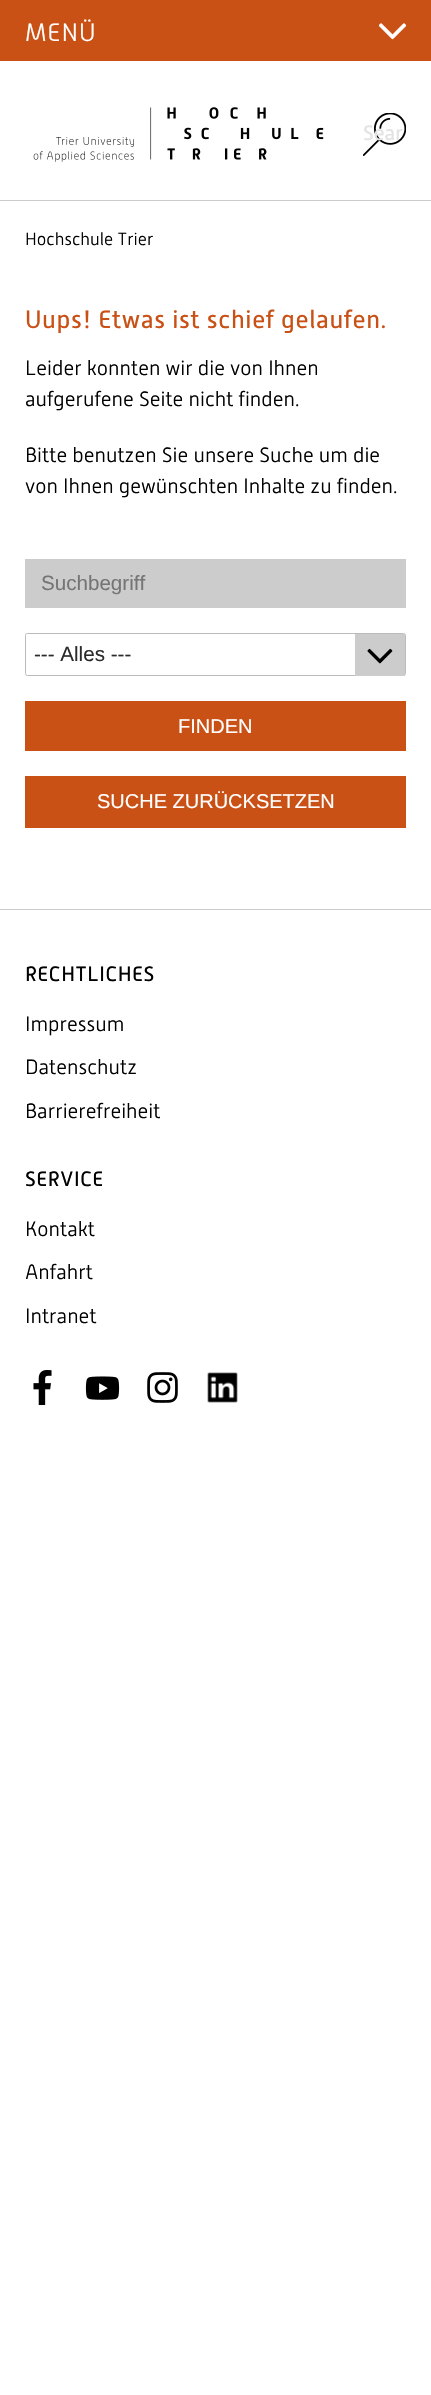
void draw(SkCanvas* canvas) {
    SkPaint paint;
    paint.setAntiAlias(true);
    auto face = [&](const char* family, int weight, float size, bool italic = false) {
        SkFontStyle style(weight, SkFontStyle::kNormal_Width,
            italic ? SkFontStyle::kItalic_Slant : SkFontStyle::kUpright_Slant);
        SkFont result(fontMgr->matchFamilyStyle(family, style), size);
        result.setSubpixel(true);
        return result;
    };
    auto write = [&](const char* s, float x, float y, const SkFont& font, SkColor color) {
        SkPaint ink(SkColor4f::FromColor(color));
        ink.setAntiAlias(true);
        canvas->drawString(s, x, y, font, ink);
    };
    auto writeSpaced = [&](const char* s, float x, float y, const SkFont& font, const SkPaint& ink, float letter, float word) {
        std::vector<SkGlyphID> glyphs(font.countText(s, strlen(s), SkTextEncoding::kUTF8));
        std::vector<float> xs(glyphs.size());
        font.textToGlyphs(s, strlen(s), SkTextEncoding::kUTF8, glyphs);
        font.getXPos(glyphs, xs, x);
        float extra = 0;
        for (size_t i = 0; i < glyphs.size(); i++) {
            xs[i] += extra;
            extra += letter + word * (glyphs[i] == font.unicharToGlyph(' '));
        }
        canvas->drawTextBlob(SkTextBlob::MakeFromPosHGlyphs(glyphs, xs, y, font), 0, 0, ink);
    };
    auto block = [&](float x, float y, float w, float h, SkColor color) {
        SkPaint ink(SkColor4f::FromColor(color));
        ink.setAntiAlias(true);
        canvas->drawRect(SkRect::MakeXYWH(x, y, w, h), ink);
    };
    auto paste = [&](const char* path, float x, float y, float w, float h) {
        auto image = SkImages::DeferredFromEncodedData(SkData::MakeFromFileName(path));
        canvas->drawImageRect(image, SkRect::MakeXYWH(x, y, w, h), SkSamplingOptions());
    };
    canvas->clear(SK_ColorWHITE);
    block(0, 200, 431, 1, SkColorSetRGB(204, 204, 204));
    block(0, 0, 431, 61, SkColorSetRGB(202, 81, 22));
    auto kFont1 = face("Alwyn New", 300, 25);
    paint.setColor(SK_ColorWHITE);
    writeSpaced("MENÜ", 25, 41, kFont1, paint, 1, 0);
    paste("pic1.png", 378, 23, 29, 17);
    paste("pic2.png", 33, 107, 291, 55);
    paste("pic3.png", 363, 113, 43, 43);
    auto kFont2 = face("Alwyn New", 400, 20.6f);
    write("Sear", 363, 140, kFont2, SkColorSetRGB(227, 227, 227));
    auto kFont3 = face("Alwyn New", 300, 17.5f);
    write("Hochschule Trier", 25, 245, kFont3, SK_ColorBLACK);
    auto kFont4 = face("Alwyn New", 400, 25);
    paint.setColor(SkColorSetRGB(202, 81, 22));
    writeSpaced("Uups! Etwas ist schief gelaufen.", 25, 328, kFont4, paint, 0.6f, 0);
    auto kFont5 = face("Alwyn New", 300, 20.6f);
    write("Leider konnten wir die von Ihnen", 25, 375, kFont5, SK_ColorBLACK);
    write("aufgerufene Seite nicht finden.", 25, 406, kFont5, SK_ColorBLACK);
    write("Bitte benutzen Sie unsere Suche um die", 25, 462, kFont5, SK_ColorBLACK);
    write("von Ihnen gewünschten Inhalte zu finden.", 25, 493, kFont5, SK_ColorBLACK);
    block(25, 559, 381, 49, SkColorSetRGB(204, 204, 204));
    auto kFont6 = face("Liberation Sans", 400, 20.6f);
    write("Suchbegriff", 41, 590, kFont6, SkColorSetRGB(117, 117, 117));
    paint.setStyle(SkPaint::kStroke_Style);
    paint.setStrokeWidth(1);
    paint.setColor(SkColorSetRGB(187, 187, 187));
    canvas->drawRoundRect(SkRect::MakeXYWH(25.5f, 633.5f, 380, 42), 2, 2, paint);
    write("--- Alles ---", 34, 661, kFont6, SkColorSetRGB(43, 43, 43));
    block(355, 634, 50, 42, SkColorSetRGB(204, 204, 204));
    paste("pic4.png", 367, 648, 26, 16);
    block(25, 701, 381, 50, SkColorSetRGB(202, 81, 22));
    auto kFont7 = face("Liberation Sans", 400, 20);
    write("FINDEN", 178, 733, kFont7, SK_ColorWHITE);
    block(25, 776, 381, 52, SkColorSetRGB(202, 81, 22));
    write("SUCHE ZURÜCKSETZEN", 97, 808, kFont7, SK_ColorWHITE);
    block(0, 909, 431, 1, SkColorSetRGB(204, 204, 204));
    paint.setStyle(SkPaint::kFill_Style);
    paint.setColor(SK_ColorBLACK);
    writeSpaced("RECHTLICHES", 25, 981, kFont2, paint, 0.6f, 0);
    write("Impressum", 25, 1031, kFont5, SK_ColorBLACK);
    write("Datenschutz", 25, 1074, kFont5, SK_ColorBLACK);
    write("Barrierefreiheit", 25, 1118, kFont5, SK_ColorBLACK);
    writeSpaced("SERVICE", 25, 1186, kFont2, paint, 0.6f, 0);
    write("Kontakt", 25, 1236, kFont5, SK_ColorBLACK);
    write("Anfahrt", 25, 1279, kFont5, SK_ColorBLACK);
    write("Intranet", 25, 1323, kFont5, SK_ColorBLACK);
    paste("pic5.png", 33, 1370, 19, 35);
    paste("pic6.png", 85, 1376, 35, 24);
    paste("pic7.png", 147, 1372, 31, 31);
    paste("pic8.png", 207, 1372, 31, 31);
}
